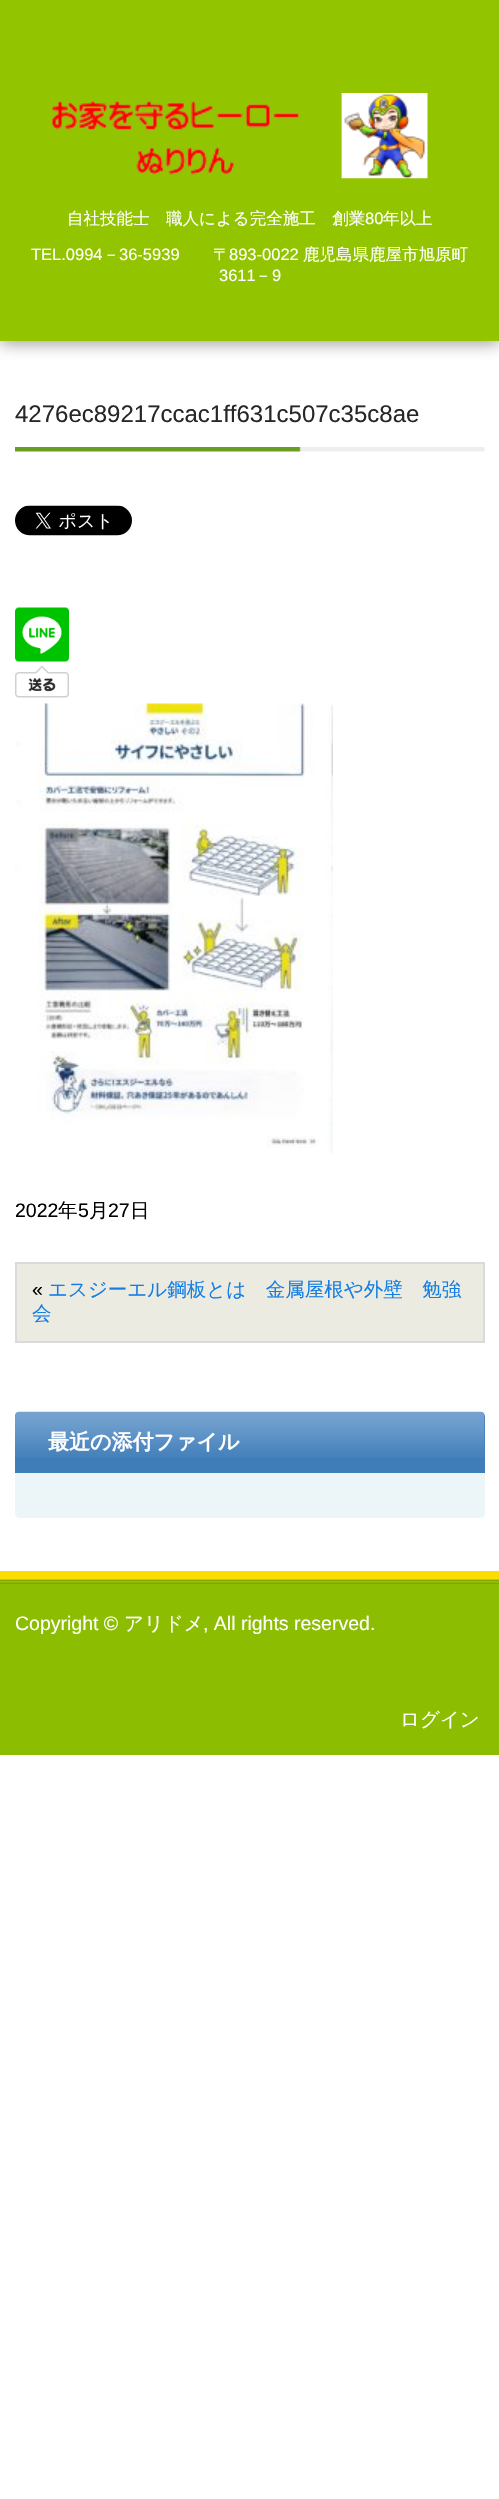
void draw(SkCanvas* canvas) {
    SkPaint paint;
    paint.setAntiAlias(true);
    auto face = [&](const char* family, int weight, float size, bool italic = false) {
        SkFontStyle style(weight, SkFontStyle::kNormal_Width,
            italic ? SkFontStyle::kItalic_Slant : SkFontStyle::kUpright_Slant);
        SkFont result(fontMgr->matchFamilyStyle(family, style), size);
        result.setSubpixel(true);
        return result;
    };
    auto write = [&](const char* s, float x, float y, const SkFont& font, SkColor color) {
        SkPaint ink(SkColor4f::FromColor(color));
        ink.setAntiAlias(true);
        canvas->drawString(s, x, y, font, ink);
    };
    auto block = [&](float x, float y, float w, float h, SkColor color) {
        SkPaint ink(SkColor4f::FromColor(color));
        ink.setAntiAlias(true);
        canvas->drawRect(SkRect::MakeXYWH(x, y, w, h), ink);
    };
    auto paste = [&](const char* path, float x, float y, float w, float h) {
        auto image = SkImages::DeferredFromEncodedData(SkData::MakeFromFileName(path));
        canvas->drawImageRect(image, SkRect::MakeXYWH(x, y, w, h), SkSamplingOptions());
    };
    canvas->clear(SK_ColorWHITE);
    paint.setColor(SkColorSetARGB(128, 66, 66, 66));
    paint.setMaskFilter(SkMaskFilter::MakeBlur(kNormal_SkBlurStyle, 7.5f));
    canvas->drawRect(SkRect::MakeXYWH(0, 3, 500, 341), paint);
    paint.setMaskFilter(nullptr);
    block(0, 0, 499, 341, SkColorSetRGB(147, 196, 0));
    paste("pic1.png", 51, 93, 377, 86);
    auto kFont1 = face("WenQuanYi Zen Hei", 500, 16.5f);
    write("自社技能士　職人による完全施工　創業", 67, 224, kFont1, SK_ColorWHITE);
    auto kFont2 = face("Liberation Sans", 400, 16.5f);
    write("80", 365, 224, kFont2, SK_ColorWHITE);
    write("年以上", 383, 224, kFont1, SK_ColorWHITE);
    write("TEL.0994", 31, 260, kFont2, SK_ColorWHITE);
    write("－", 103, 260, kFont1, SK_ColorWHITE);
    write("36‐5939", 119, 260, kFont2, SK_ColorWHITE);
    write("〒", 213, 260, kFont1, SK_ColorWHITE);
    write("893-0022", 229, 260, kFont2, SK_ColorWHITE);
    write("鹿児島県鹿屋市旭原町", 303, 260, kFont1, SK_ColorWHITE);
    write("3611", 219, 281, kFont2, SK_ColorWHITE);
    write("－", 255, 281, kFont1, SK_ColorWHITE);
    write("9", 272, 281, kFont2, SK_ColorWHITE);
    paste("pic2.png", 15, 447, 470, 5);
    auto kFont3 = face("Liberation Sans", 400, 24);
    write("4276ec89217ccac1ff631c507c35c8ae", 15, 422, kFont3, SkColorSetRGB(39, 39, 39));
    paste("pic3.png", 15, 505, 117, 31);
    paste("pic4.png", 15, 607, 54, 91);
    paste("pic5.png", 15, 703, 318, 451);
    auto kFont4 = face("Liberation Sans", 400, 19.5f);
    write("2022", 15, 1217, kFont4, SK_ColorBLACK);
    auto kFont5 = face("WenQuanYi Zen Hei", 500, 19.5f);
    write("年", 58, 1217, kFont5, SK_ColorBLACK);
    write("5", 78, 1217, kFont4, SK_ColorBLACK);
    write("月", 89, 1217, kFont5, SK_ColorBLACK);
    write("27", 108, 1217, kFont4, SK_ColorBLACK);
    write("日", 130, 1217, kFont5, SK_ColorBLACK);
    paint.setColor(SkColorSetRGB(235, 235, 225));
    canvas->drawRect(SkRect::MakeXYWH(16, 1263, 468, 79), paint);
    paint.setStyle(SkPaint::kStroke_Style);
    paint.setStrokeWidth(2);
    paint.setColor(SkColorSetRGB(218, 218, 218));
    canvas->drawRect(SkRect::MakeXYWH(16, 1263, 468, 79), paint);
    write("«", 32, 1296, kFont4, SK_ColorBLACK);
    write("エスジーエル鋼板とは　金属屋根や外壁　勉強", 48, 1296, kFont5, SkColorSetRGB(21, 126, 228));
    write("会", 32, 1320, kFont5, SkColorSetRGB(21, 126, 228));
    paint.setStyle(SkPaint::kFill_Style);
    paint.setColor(SkColorSetRGB(236, 245, 247));
    canvas->drawPath(SkPathBuilder().moveTo(15, 1412).lineTo(485, 1412).lineTo(485, 1513).cubicTo(485, 1516, 483, 1518, 480, 1518).lineTo(20, 1518).cubicTo(17, 1518, 15, 1516, 15, 1513).close().detach(), paint);
    paint.setColor(SkColorSetRGB(63, 125, 184));
    canvas->drawPath(SkPathBuilder().moveTo(20, 1412).lineTo(480, 1412).cubicTo(483, 1412, 485, 1414, 485, 1417).lineTo(485, 1473).lineTo(15, 1473).lineTo(15, 1417).cubicTo(15, 1414, 17, 1412, 20, 1412).close().detach(), paint);
    paste("pic6.png", 15, 1411, 470, 47);
    auto kFont6 = face("WenQuanYi Zen Hei", 700, 21);
    write("最近の添付ファイル", 48, 1449, kFont6, SK_ColorWHITE);
    block(0, 1584, 499, 171, SkColorSetRGB(140, 189, 0));
    block(0, 1571, 499, 9, SkColorSetRGB(251, 222, 0));
    paste("pic7.png", 0, 1579, 499, 5);
    write("Copyright ©", 15, 1630, kFont4, SK_ColorWHITE);
    write("アリドメ", 124, 1630, kFont5, SK_ColorWHITE);
    write(", All rights reserved.", 203, 1630, kFont4, SK_ColorWHITE);
    write("ログイン", 400, 1726, kFont5, SK_ColorWHITE);
}
